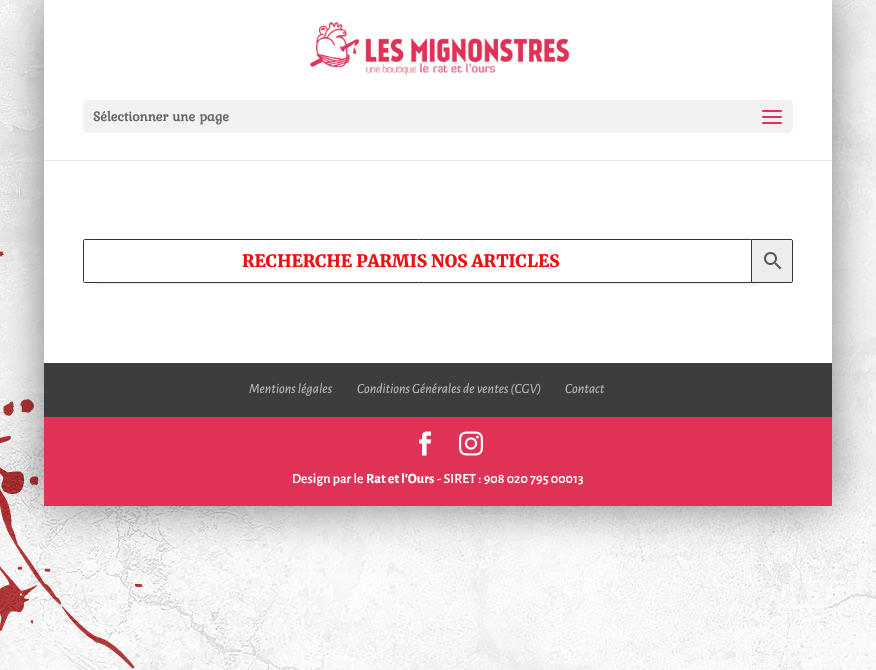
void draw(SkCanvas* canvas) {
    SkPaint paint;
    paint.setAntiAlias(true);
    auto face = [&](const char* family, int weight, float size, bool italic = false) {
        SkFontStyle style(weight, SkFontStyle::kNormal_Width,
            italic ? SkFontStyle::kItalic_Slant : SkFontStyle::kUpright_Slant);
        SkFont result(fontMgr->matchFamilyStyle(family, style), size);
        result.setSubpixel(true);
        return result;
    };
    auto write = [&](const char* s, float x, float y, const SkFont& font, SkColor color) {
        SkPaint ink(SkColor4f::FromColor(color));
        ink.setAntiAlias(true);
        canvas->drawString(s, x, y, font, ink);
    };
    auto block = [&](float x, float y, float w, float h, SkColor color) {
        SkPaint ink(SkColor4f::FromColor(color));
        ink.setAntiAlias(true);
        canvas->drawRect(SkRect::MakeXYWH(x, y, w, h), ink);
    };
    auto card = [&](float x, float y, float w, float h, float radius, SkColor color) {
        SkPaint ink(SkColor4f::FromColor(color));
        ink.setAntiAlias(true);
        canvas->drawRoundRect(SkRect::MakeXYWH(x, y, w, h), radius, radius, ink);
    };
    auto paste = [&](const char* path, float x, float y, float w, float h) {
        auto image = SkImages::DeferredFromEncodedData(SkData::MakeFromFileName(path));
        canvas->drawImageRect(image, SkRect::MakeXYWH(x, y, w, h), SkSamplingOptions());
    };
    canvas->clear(SK_ColorWHITE);
    paste("pic1.png", 0, 0, 876, 670);
    paint.setColor(SkColorSetARGB(125, 0, 0, 0));
    paint.setMaskFilter(SkMaskFilter::MakeBlur(kNormal_SkBlurStyle, 22.5f));
    canvas->drawRect(SkRect::MakeXYWH(44, 0, 788, 506), paint);
    paint.setMaskFilter(nullptr);
    block(44, 160, 788, 1, SkColorSetRGB(230, 230, 230));
    block(44, 0, 788, 160, SK_ColorWHITE);
    paste("pic2.png", 310, 22, 260, 54);
    card(83, 100, 710, 33, 5, SkColorSetRGB(242, 242, 242));
    auto kFont1 = face("Kurale", 700, 14);
    write("Sélectionner une page", 93, 121, kFont1, SkColorSetRGB(102, 102, 102));
    paste("pic3.png", 762, 110, 20, 14);
    block(44, 161, 788, 202, SK_ColorWHITE);
    paint.setColor(SkColorSetARGB(33, 0, 0, 0));
    paint.setMaskFilter(SkMaskFilter::MakeBlur(kNormal_SkBlurStyle, 2.5f));
    canvas->drawRect(SkRect::MakeXYWH(95, 243, 665, 40), paint);
    paint.setMaskFilter(nullptr);
    paint.setColor(SkColorSetRGB(237, 237, 237));
    canvas->drawPath(SkPathBuilder().moveTo(751.5f, 239.5f).lineTo(791, 239.5f).cubicTo(792, 239.5f, 792.5f, 240, 792.5f, 241).lineTo(792.5f, 281).cubicTo(792.5f, 282, 792, 282.5f, 791, 282.5f).lineTo(751.5f, 282.5f).close().detach(), paint);
    paint.setStyle(SkPaint::kStroke_Style);
    paint.setStrokeWidth(1);
    paint.setColor(SkColorSetRGB(51, 51, 51));
    canvas->drawPath(SkPathBuilder().moveTo(751.5f, 239.5f).lineTo(791, 239.5f).cubicTo(792, 239.5f, 792.5f, 240, 792.5f, 241).lineTo(792.5f, 281).cubicTo(792.5f, 282, 792, 282.5f, 791, 282.5f).lineTo(751.5f, 282.5f).close().detach(), paint);
    paint.setStyle(SkPaint::kFill_Style);
    paint.setColor(SK_ColorWHITE);
    canvas->drawPath(SkPathBuilder().moveTo(85, 239.5f).lineTo(751.5f, 239.5f).lineTo(751.5f, 282.5f).lineTo(85, 282.5f).cubicTo(84, 282.5f, 83.5f, 282, 83.5f, 281).lineTo(83.5f, 241).cubicTo(83.5f, 240, 84, 239.5f, 85, 239.5f).close().detach(), paint);
    paint.setStyle(SkPaint::kStroke_Style);
    paint.setColor(SkColorSetRGB(51, 51, 51));
    canvas->drawPath(SkPathBuilder().moveTo(85, 239.5f).lineTo(751.5f, 239.5f).lineTo(751.5f, 282.5f).lineTo(85, 282.5f).cubicTo(84, 282.5f, 83.5f, 282, 83.5f, 281).lineTo(83.5f, 241).cubicTo(83.5f, 240, 84, 239.5f, 85, 239.5f).close().detach(), paint);
    auto kFont2 = face("Merriweather", 900, 17);
    write("RECHERCHE PARMIS NOS ARTICLES", 242, 267, kFont2, SkColorSetRGB(239, 17, 17));
    paste("pic4.png", 764, 252, 18, 18);
    block(44, 363, 788, 54, SkColorSetRGB(61, 61, 61));
    auto kFont3 = face("Alegreya Sans", 400, 14, true);
    write("Mentions légales", 249, 393, kFont3, SkColorSetRGB(187, 187, 187));
    write("Conditions Générales de ventes (CGV)", 357, 393, kFont3, SkColorSetRGB(187, 187, 187));
    write("Contact", 565, 393, kFont3, SkColorSetRGB(187, 187, 187));
    block(44, 417, 788, 89, SkColorSetRGB(224, 49, 87));
    paste("pic5.png", 419, 431, 13, 25);
    paste("pic6.png", 459, 431, 24, 25);
    auto kFont4 = face("Alegreya Sans", 500, 14);
    write("Design par le", 292, 483, kFont4, SK_ColorWHITE);
    auto kFont5 = face("Alegreya Sans", 700, 14);
    write("Rat et l'Ours", 366, 483, kFont5, SK_ColorWHITE);
    write("- SIRET : 908 020 795 00013", 437, 483, kFont4, SK_ColorWHITE);
}
